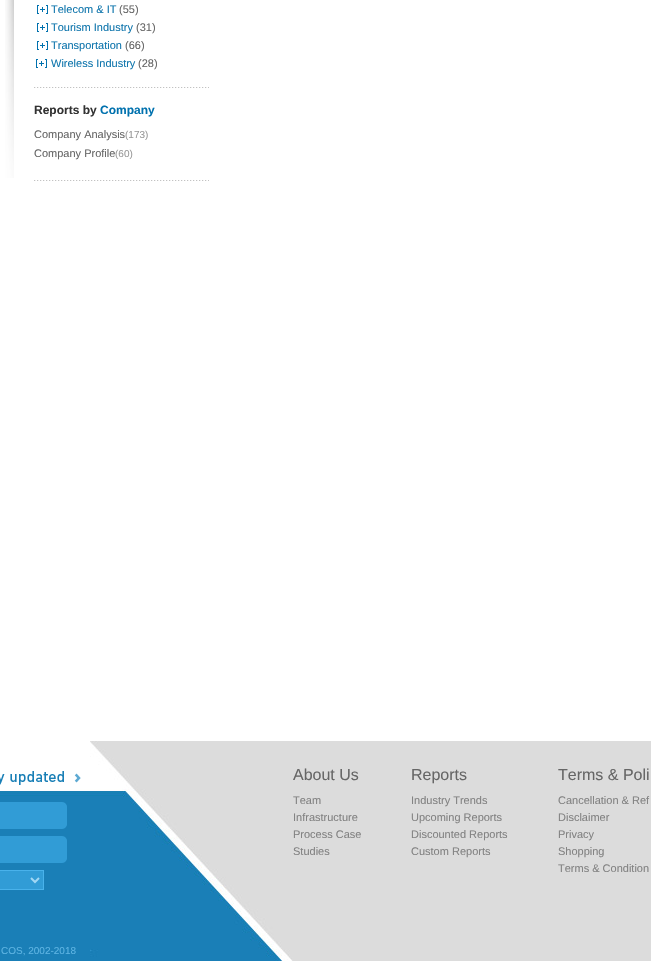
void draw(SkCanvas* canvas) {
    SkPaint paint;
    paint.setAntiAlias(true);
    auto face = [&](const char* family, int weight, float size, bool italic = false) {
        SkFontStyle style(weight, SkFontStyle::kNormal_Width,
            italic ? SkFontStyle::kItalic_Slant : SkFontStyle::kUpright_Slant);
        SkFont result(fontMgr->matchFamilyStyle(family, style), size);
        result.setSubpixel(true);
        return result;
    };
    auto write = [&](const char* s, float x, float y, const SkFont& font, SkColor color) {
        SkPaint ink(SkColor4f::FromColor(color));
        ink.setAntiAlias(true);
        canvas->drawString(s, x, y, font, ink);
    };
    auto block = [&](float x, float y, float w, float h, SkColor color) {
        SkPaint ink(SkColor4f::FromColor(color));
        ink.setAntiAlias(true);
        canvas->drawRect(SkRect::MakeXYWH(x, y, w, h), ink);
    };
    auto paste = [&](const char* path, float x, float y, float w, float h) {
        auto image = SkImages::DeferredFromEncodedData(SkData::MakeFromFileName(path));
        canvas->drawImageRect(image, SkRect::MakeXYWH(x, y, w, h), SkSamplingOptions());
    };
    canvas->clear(SK_ColorWHITE);
    paste("pic1.png", 5, 0, 9, 178);
    paste("pic2.png", 34, 87, 175, 1);
    paste("pic3.png", 37, 5, 11, 9);
    auto kFont1 = face("Liberation Sans", 400, 11);
    write("Telecom & IT", 51, 13, kFont1, SkColorSetRGB(16, 118, 173));
    write("(55)", 119, 13, kFont1, SkColorSetRGB(102, 102, 102));
    paste("pic3.png", 37, 23, 11, 9);
    write("Tourism Industry", 51, 31, kFont1, SkColorSetRGB(16, 118, 173));
    write("(31)", 136, 31, kFont1, SkColorSetRGB(102, 102, 102));
    paste("pic3.png", 37, 41, 11, 9);
    write("Transportation", 51, 49, kFont1, SkColorSetRGB(16, 118, 173));
    write("(66)", 125, 49, kFont1, SkColorSetRGB(102, 102, 102));
    paste("pic3.png", 36, 59, 11, 9);
    write("Wireless Industry", 51, 67, kFont1, SkColorSetRGB(16, 118, 173));
    write("(28)", 138, 67, kFont1, SkColorSetRGB(102, 102, 102));
    paste("pic2.png", 34, 180, 175, 1);
    auto kFont2 = face("Liberation Sans", 700, 12);
    write("Reports by", 34, 114, kFont2, SkColorSetRGB(51, 51, 51));
    write("Company", 100, 114, kFont2, SkColorSetRGB(0, 113, 174));
    write("Company Analysis", 34, 138, kFont1, SkColorSetRGB(102, 102, 102));
    auto kFont3 = face("Liberation Sans", 400, 10);
    write("(173)", 125, 138, kFont3, SkColorSetRGB(153, 153, 153));
    write("Company Profile", 34, 157, kFont1, SkColorSetRGB(102, 102, 102));
    write("(60)", 115, 157, kFont3, SkColorSetRGB(153, 153, 153));
    block(293, 741, 358, 220, SkColorSetRGB(220, 220, 220));
    auto kFont4 = face("Liberation Sans", 400, 16);
    write("About Us", 293, 780, kFont4, SkColorSetRGB(102, 102, 102));
    write("Team", 293, 804, kFont1, SkColorSetRGB(130, 130, 130));
    write("Infrastructure", 293, 821, kFont1, SkColorSetRGB(130, 130, 130));
    write("Process Case", 293, 838, kFont1, SkColorSetRGB(130, 130, 130));
    write("Studies", 293, 855, kFont1, SkColorSetRGB(130, 130, 130));
    write("Reports", 411, 780, kFont4, SkColorSetRGB(102, 102, 102));
    write("Industry Trends", 411, 804, kFont1, SkColorSetRGB(130, 130, 130));
    write("Upcoming Reports", 411, 821, kFont1, SkColorSetRGB(130, 130, 130));
    write("Discounted Reports", 411, 838, kFont1, SkColorSetRGB(130, 130, 130));
    write("Custom Reports", 411, 855, kFont1, SkColorSetRGB(130, 130, 130));
    write("Terms & Poli", 558, 780, kFont4, SkColorSetRGB(102, 102, 102));
    write("Cancellation & Ref", 558, 804, kFont1, SkColorSetRGB(130, 130, 130));
    write("Disclaimer", 558, 821, kFont1, SkColorSetRGB(130, 130, 130));
    write("Privacy", 558, 838, kFont1, SkColorSetRGB(130, 130, 130));
    write("Shopping", 558, 855, kFont1, SkColorSetRGB(130, 130, 130));
    write("Terms & Condition", 558, 872, kFont1, SkColorSetRGB(130, 130, 130));
    paste("pic4.png", 0, 741, 90, 220);
    paste("pic5.png", 90, 741, 203, 220);
    paste("pic6.png", 0, 771, 81, 14);
    paste("pic7.png", 0, 802, 67, 27);
    paste("pic7.png", 0, 836, 67, 27);
    paint.setColor(SkColorSetRGB(49, 156, 214));
    canvas->drawRect(SkRect::MakeXYWH(-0.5f, 870.5f, 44, 19), paint);
    paint.setStyle(SkPaint::kStroke_Style);
    paint.setStrokeWidth(1);
    paint.setColor(SkColorSetRGB(73, 178, 235));
    canvas->drawRect(SkRect::MakeXYWH(-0.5f, 870.5f, 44, 19), paint);
    paint.setStrokeWidth(2);
    paint.setColor(SkColorSetRGB(161, 215, 244));
    canvas->drawPath(SkPathBuilder().moveTo(31, 878).lineTo(35, 882).lineTo(39, 878).detach(), paint);
    write("COS, 2002-2018", 1, 954, kFont3, SkColorSetRGB(93, 180, 227));
}
